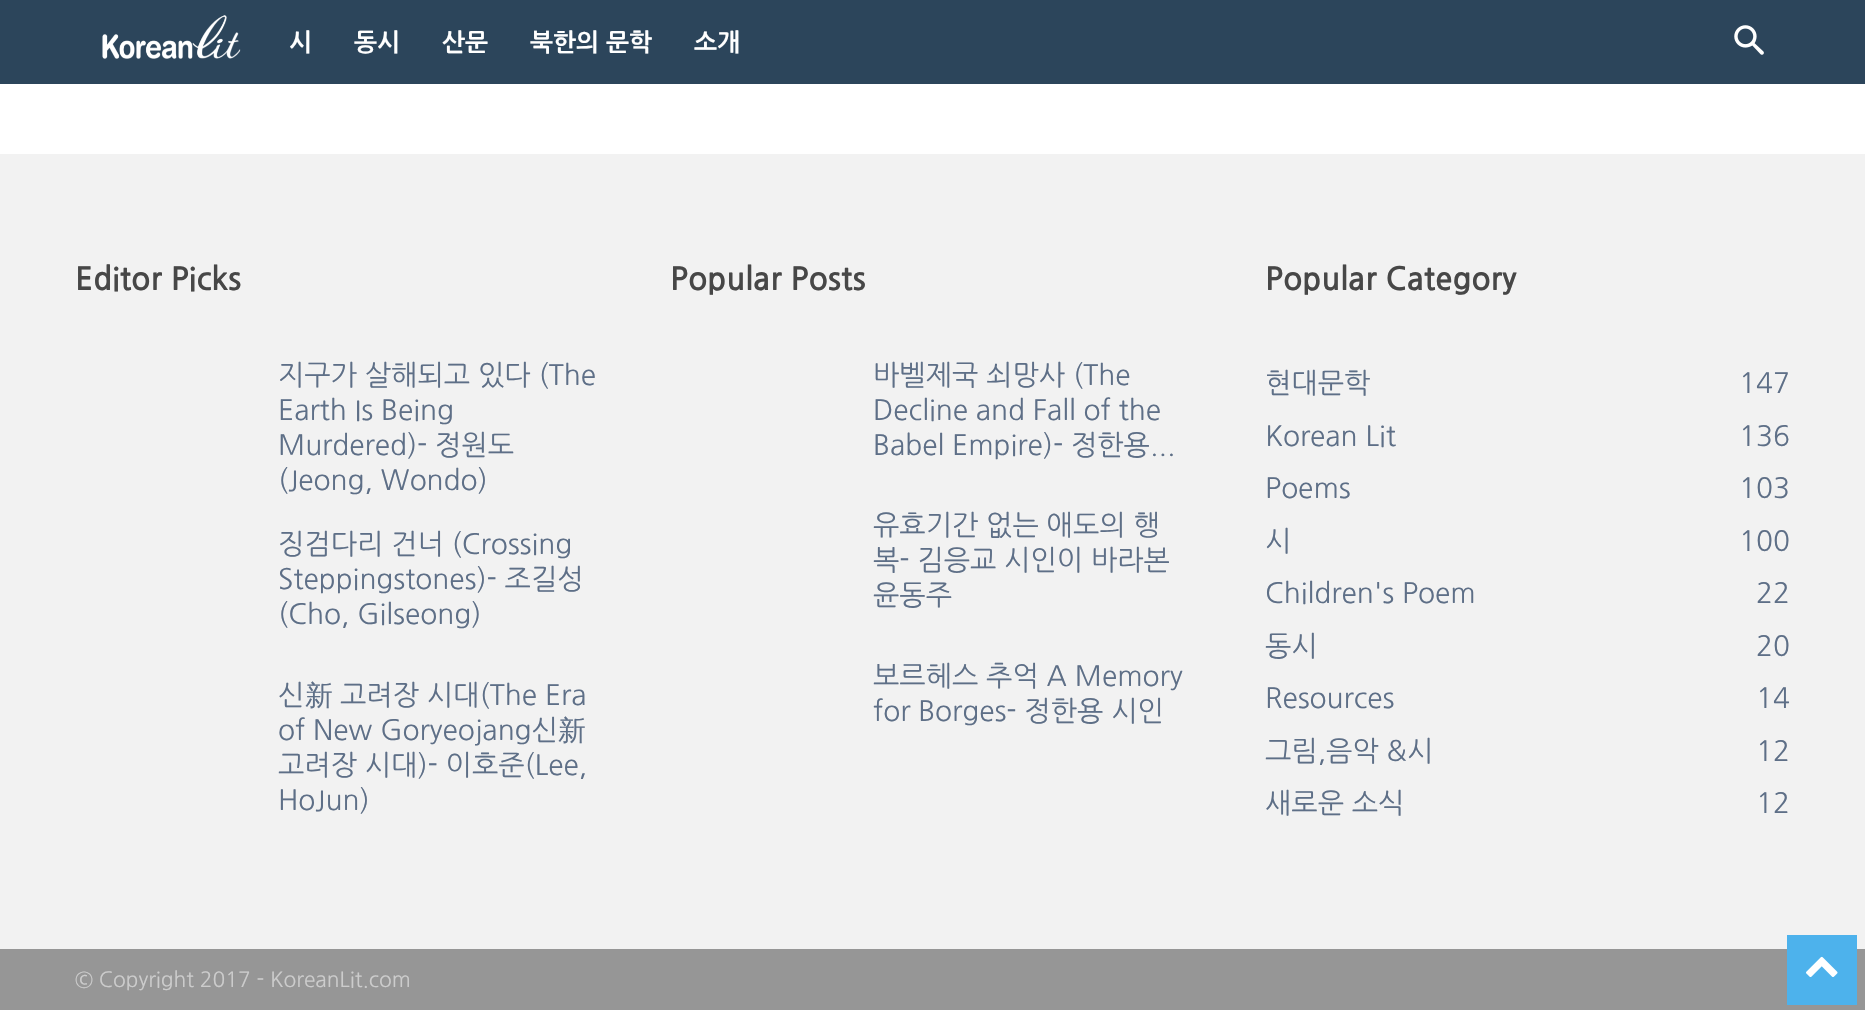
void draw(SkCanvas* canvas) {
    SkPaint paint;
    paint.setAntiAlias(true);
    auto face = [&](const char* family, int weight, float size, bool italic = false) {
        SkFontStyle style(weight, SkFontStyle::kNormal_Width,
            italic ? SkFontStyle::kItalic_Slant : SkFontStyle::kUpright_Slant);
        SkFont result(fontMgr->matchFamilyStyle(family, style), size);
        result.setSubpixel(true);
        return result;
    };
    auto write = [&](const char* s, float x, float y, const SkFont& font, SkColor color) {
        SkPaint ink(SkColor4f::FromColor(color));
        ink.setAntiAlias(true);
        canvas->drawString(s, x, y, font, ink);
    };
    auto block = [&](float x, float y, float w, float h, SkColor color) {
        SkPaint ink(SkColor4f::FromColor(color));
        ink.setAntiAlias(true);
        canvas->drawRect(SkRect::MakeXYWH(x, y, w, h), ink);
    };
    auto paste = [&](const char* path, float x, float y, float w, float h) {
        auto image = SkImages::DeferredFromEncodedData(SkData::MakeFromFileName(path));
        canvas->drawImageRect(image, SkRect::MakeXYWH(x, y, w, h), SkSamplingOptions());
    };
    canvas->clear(SK_ColorWHITE);
    block(0, 0, 1865, 84, SkColorSetRGB(44, 69, 91));
    paste("pic1.png", 102, 15, 139, 44);
    auto kFont1 = face("NanumGothic", 700, 24.5f);
    write("시", 289, 51, kFont1, SK_ColorWHITE);
    write("동시", 354, 51, kFont1, SK_ColorWHITE);
    write("산문", 442, 51, kFont1, SK_ColorWHITE);
    write("북한의 문학", 530, 51, kFont1, SK_ColorWHITE);
    write("소개", 694, 51, kFont1, SK_ColorWHITE);
    paste("pic2.png", 1734, 25, 30, 30);
    block(0, 154, 1865, 795, SkColorSetRGB(242, 242, 242));
    auto kFont2 = face("NanumGothic", 700, 31.5f);
    write("Editor Picks", 75, 290, kFont2, SkColorSetRGB(71, 71, 71));
    auto kFont3 = face("NanumGothic", 400, 28);
    write("지구가 살해되고 있다 (The", 278, 385, kFont3, SkColorSetRGB(94, 111, 135));
    write("Earth Is Being", 278, 420, kFont3, SkColorSetRGB(94, 111, 135));
    write("Murdered)- 정원도", 278, 455, kFont3, SkColorSetRGB(94, 111, 135));
    write("(Jeong, Wondo)", 278, 490, kFont3, SkColorSetRGB(94, 111, 135));
    write("징검다리 건너 (Crossing", 278, 554, kFont3, SkColorSetRGB(94, 111, 135));
    write("Steppingstones)- 조길성", 278, 589, kFont3, SkColorSetRGB(94, 111, 135));
    write("(Cho, Gilseong)", 278, 624, kFont3, SkColorSetRGB(94, 111, 135));
    write("신", 278, 705, kFont3, SkColorSetRGB(94, 111, 135));
    auto kFont4 = face("WenQuanYi Zen Hei", 500, 28);
    write("新", 305, 705, kFont4, SkColorSetRGB(94, 111, 135));
    write("고려장 시대(The Era", 340, 705, kFont3, SkColorSetRGB(94, 111, 135));
    write("of New Goryeojang신", 278, 740, kFont3, SkColorSetRGB(94, 111, 135));
    write("新", 558, 740, kFont4, SkColorSetRGB(94, 111, 135));
    write("고려장 시대)- 이호준(Lee,", 278, 775, kFont3, SkColorSetRGB(94, 111, 135));
    write("HoJun)", 278, 810, kFont3, SkColorSetRGB(94, 111, 135));
    write("Popular Posts", 670, 290, kFont2, SkColorSetRGB(71, 71, 71));
    write("바벨제국 쇠망사 (The", 873, 385, kFont3, SkColorSetRGB(94, 111, 135));
    write("Decline and Fall of the", 873, 420, kFont3, SkColorSetRGB(94, 111, 135));
    write("Babel Empire)- 정한용...", 873, 455, kFont3, SkColorSetRGB(94, 111, 135));
    write("유효기간 없는 애도의 행", 873, 535, kFont3, SkColorSetRGB(94, 111, 135));
    write("복- 김응교 시인이 바라본", 873, 570, kFont3, SkColorSetRGB(94, 111, 135));
    write("윤동주", 873, 605, kFont3, SkColorSetRGB(94, 111, 135));
    write("보르헤스 추억 A Memory", 873, 686, kFont3, SkColorSetRGB(94, 111, 135));
    write("for Borges- 정한용 시인", 873, 721, kFont3, SkColorSetRGB(94, 111, 135));
    write("Popular Category", 1265, 290, kFont2, SkColorSetRGB(71, 71, 71));
    write("현대문학", 1265, 393, kFont3, SkColorSetRGB(94, 111, 135));
    write("147", 1739, 393, kFont3, SkColorSetRGB(94, 111, 135));
    write("Korean Lit", 1265, 446, kFont3, SkColorSetRGB(94, 111, 135));
    write("136", 1739, 446, kFont3, SkColorSetRGB(94, 111, 135));
    write("Poems", 1265, 498, kFont3, SkColorSetRGB(94, 111, 135));
    write("103", 1739, 498, kFont3, SkColorSetRGB(94, 111, 135));
    write("시", 1265, 551, kFont3, SkColorSetRGB(94, 111, 135));
    write("100", 1739, 551, kFont3, SkColorSetRGB(94, 111, 135));
    write("Children's Poem", 1265, 603, kFont3, SkColorSetRGB(94, 111, 135));
    write("22", 1756, 603, kFont3, SkColorSetRGB(94, 111, 135));
    write("동시", 1265, 656, kFont3, SkColorSetRGB(94, 111, 135));
    write("20", 1756, 656, kFont3, SkColorSetRGB(94, 111, 135));
    write("Resources", 1265, 708, kFont3, SkColorSetRGB(94, 111, 135));
    write("14", 1756, 708, kFont3, SkColorSetRGB(94, 111, 135));
    write("그림,음악 &시", 1265, 761, kFont3, SkColorSetRGB(94, 111, 135));
    write("12", 1756, 761, kFont3, SkColorSetRGB(94, 111, 135));
    write("새로운 소식", 1265, 813, kFont3, SkColorSetRGB(94, 111, 135));
    write("12", 1756, 813, kFont3, SkColorSetRGB(94, 111, 135));
    block(0, 949, 1865, 61, SkColorSetRGB(150, 150, 150));
    auto kFont5 = face("NanumGothic", 400, 21);
    write("© Copyright 2017 - KoreanLit.com", 75, 987, kFont5, SkColorSetRGB(204, 204, 204));
    block(1787, 935, 70, 70, SkColorSetRGB(77, 178, 236));
    paste("pic3.png", 1806, 956, 32, 21);
}
